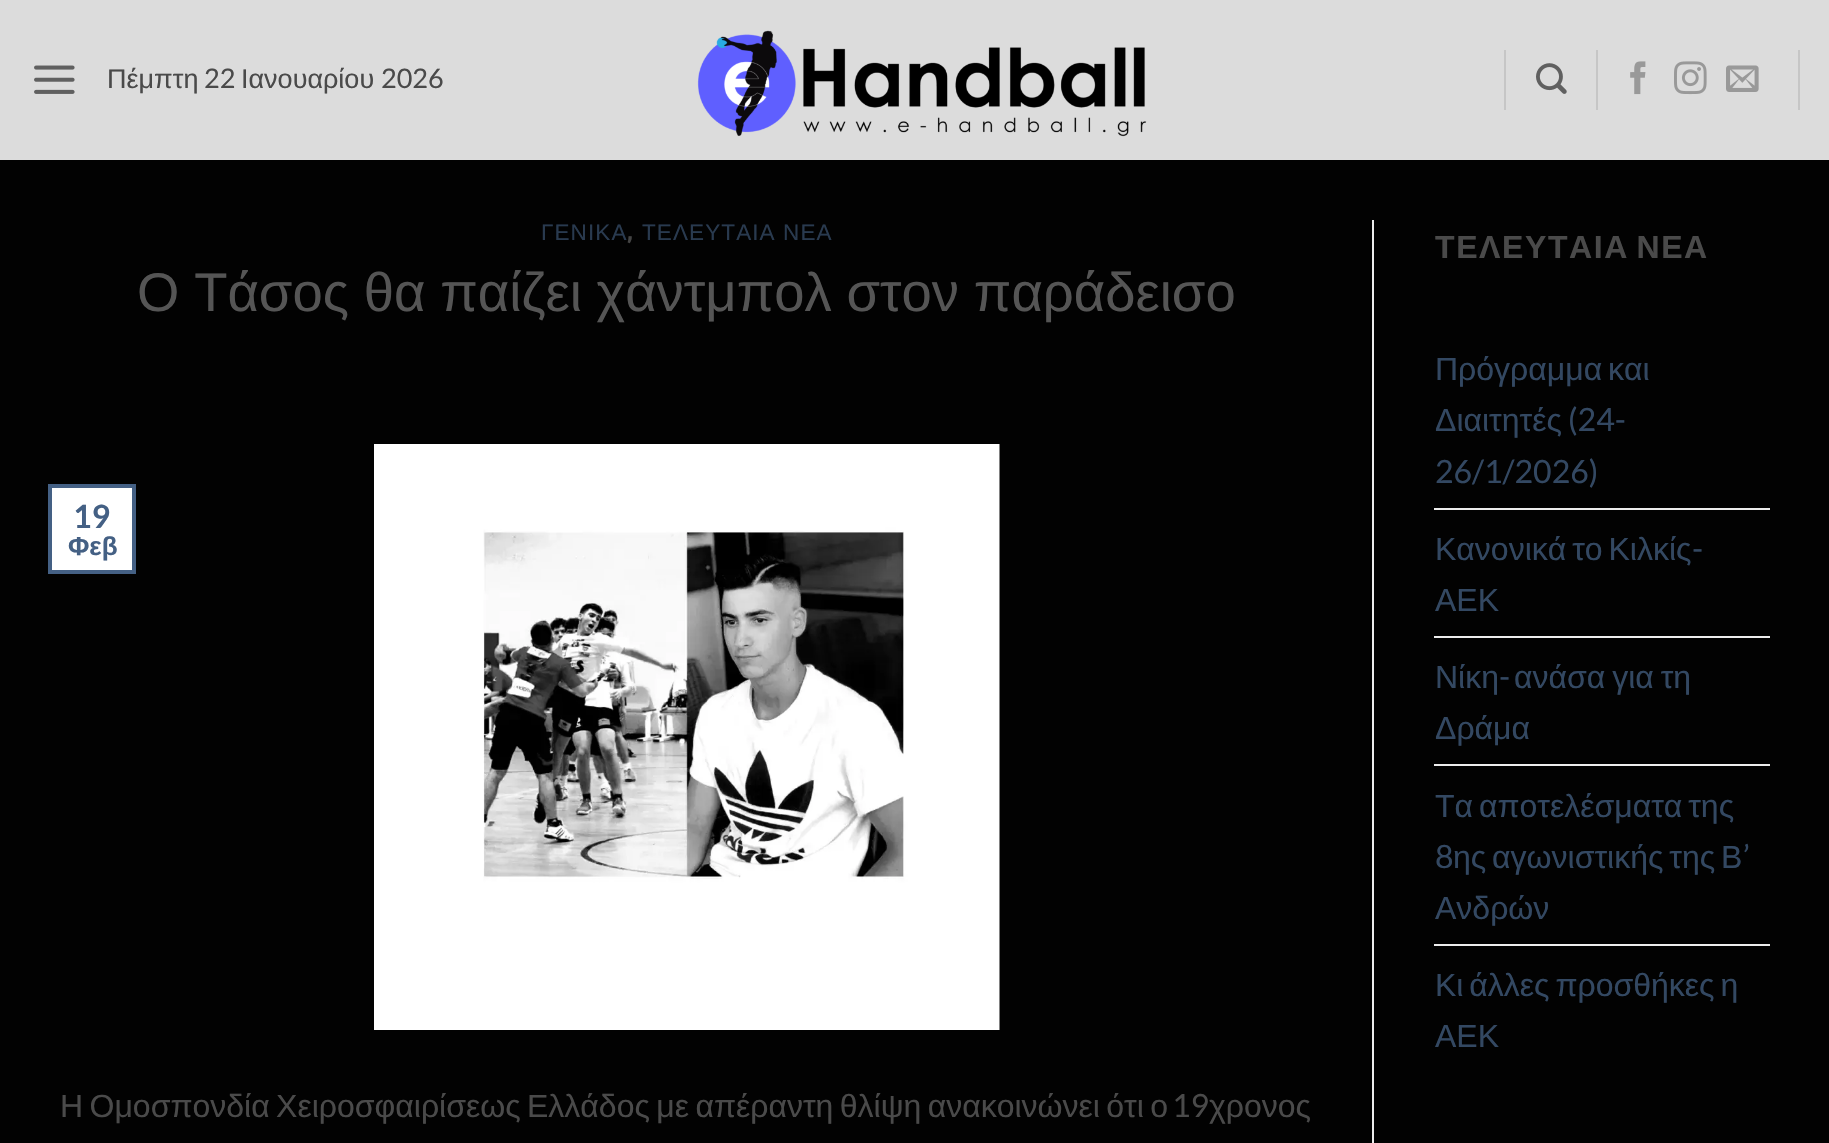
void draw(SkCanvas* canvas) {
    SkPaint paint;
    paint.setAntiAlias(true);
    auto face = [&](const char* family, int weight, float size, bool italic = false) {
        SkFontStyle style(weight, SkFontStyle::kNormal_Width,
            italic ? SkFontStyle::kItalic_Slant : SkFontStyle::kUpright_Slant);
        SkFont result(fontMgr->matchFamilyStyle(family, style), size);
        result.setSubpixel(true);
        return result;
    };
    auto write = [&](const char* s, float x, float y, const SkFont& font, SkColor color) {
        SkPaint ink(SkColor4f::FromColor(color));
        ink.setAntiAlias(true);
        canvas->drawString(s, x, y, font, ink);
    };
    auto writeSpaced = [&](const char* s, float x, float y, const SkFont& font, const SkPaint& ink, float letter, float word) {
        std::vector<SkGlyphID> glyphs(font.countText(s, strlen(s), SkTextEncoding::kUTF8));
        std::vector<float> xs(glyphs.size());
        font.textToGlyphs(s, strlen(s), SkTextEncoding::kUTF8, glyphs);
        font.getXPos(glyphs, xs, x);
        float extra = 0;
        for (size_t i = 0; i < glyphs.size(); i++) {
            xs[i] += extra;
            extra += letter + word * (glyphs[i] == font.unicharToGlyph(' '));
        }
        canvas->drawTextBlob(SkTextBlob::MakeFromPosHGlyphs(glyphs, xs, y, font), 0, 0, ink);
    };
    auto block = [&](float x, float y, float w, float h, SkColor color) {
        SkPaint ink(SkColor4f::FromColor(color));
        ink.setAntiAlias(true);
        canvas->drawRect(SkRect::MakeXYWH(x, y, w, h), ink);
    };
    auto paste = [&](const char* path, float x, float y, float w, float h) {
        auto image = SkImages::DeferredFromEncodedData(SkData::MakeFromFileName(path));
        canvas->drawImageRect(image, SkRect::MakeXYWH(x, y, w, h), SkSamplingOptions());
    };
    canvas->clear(SkColorSetRGB(2, 2, 2));
    block(0, 0, 1829, 160, SkColorSetRGB(220, 220, 220));
    paste("pic1.png", 34, 65, 41, 29);
    auto kFont1 = face("Liberation Sans", 400, 27);
    write("Πέμπτη", 107, 88, kFont1, SkColorSetRGB(74, 74, 74));
    auto kFont2 = face("Lato", 400, 27);
    write("22", 204, 88, kFont2, SkColorSetRGB(74, 74, 74));
    write("Ιανουαρίου", 241, 88, kFont1, SkColorSetRGB(74, 74, 74));
    write("2026", 381, 88, kFont2, SkColorSetRGB(74, 74, 74));
    paste("pic2.png", 697, 30, 450, 107);
    block(1504, 50, 2, 60, SkColorSetRGB(198, 198, 198));
    paste("pic3.png", 1536, 63, 31, 31);
    block(1596, 50, 2, 60, SkColorSetRGB(198, 198, 198));
    paste("pic4.png", 1630, 61, 16, 34);
    paste("pic5.png", 1674, 61, 33, 34);
    paste("pic6.png", 1726, 65, 33, 27);
    block(1798, 50, 2, 60, SkColorSetRGB(198, 198, 198));
    auto kFont3 = face("Liberation Sans", 400, 22.5f);
    paint.setColor(SkColorSetRGB(41, 58, 79));
    writeSpaced("ΓΕΝΙΚΑ", 541, 240, kFont3, paint, 1.1f, 0);
    auto kFont4 = face("ADLaM Display", 400, 22.5f);
    paint.setColor(SkColorSetRGB(68, 68, 68));
    writeSpaced(",", 627, 240, kFont4, paint, 1.1f, 0);
    paint.setColor(SkColorSetRGB(41, 58, 79));
    writeSpaced("ΤΕΛΕΥΤΑΙΑ ΝΕΑ", 642, 240, kFont3, paint, 1.1f, 0);
    auto kFont5 = face("Liberation Sans", 400, 54.4f);
    paint.setColor(SkColorSetRGB(85, 85, 85));
    writeSpaced("Ο Τάσος θα παίζει χάντμπολ στον παράδεισο", 137, 311, kFont5, paint, 0, -0.25f);
    paint.setColor(SK_ColorWHITE);
    canvas->drawRect(SkRect::MakeXYWH(50, 486, 84, 86), paint);
    paint.setStyle(SkPaint::kStroke_Style);
    paint.setStrokeWidth(4);
    paint.setColor(SkColorSetRGB(68, 96, 132));
    canvas->drawRect(SkRect::MakeXYWH(50, 486, 84, 86), paint);
    auto kFont6 = face("Lato", 700, 32);
    write("19", 73, 528, kFont6, SkColorSetRGB(68, 96, 132));
    auto kFont7 = face("Liberation Sans", 700, 26);
    write("Φεβ", 68, 555, kFont7, SkColorSetRGB(68, 96, 132));
    paste("pic7.png", 374, 444, 626, 586);
    auto kFont8 = face("Liberation Sans", 400, 32);
    paint.setStyle(SkPaint::kFill_Style);
    paint.setColor(SkColorSetRGB(74, 74, 74));
    writeSpaced("Η Ομοσπονδία Χειροσφαιρίσεως Ελλάδος με απέραντη θλίψη ανακοινώνει ότι ο", 60, 1117, kFont8, paint, 0, -2.5f);
    auto kFont9 = face("Lato", 400, 32);
    write("19", 1172, 1117, kFont9, SkColorSetRGB(74, 74, 74));
    write("χρονος", 1209, 1117, kFont8, SkColorSetRGB(74, 74, 74));
    block(1372, 220, 2, 923, SkColorSetRGB(236, 236, 236));
    auto kFont10 = face("Liberation Sans", 700, 32);
    writeSpaced("ΤΕΛΕΥΤΑΙΑ ΝΕΑ", 1435, 258, kFont10, paint, 1.6f, -3);
    paint.setColor(SkColorSetRGB(51, 72, 98));
    writeSpaced("Πρόγραμμα και", 1435, 380, kFont8, paint, 0, -3);
    write("Διαιτητές", 1435, 431, kFont8, SkColorSetRGB(51, 72, 98));
    write("(24-", 1568, 431, kFont9, SkColorSetRGB(51, 72, 98));
    write("26/1/2026)", 1435, 483, kFont9, SkColorSetRGB(51, 72, 98));
    block(1434, 508, 336, 2, SkColorSetRGB(236, 236, 236));
    writeSpaced("Κανονικά το Κιλκίς", 1435, 560, kFont8, paint, 0, -3);
    write("-", 1692, 560, kFont9, SkColorSetRGB(51, 72, 98));
    write("ΑΕΚ", 1435, 611, kFont8, SkColorSetRGB(51, 72, 98));
    block(1434, 636, 336, 2, SkColorSetRGB(236, 236, 236));
    write("Νίκη", 1435, 688, kFont8, SkColorSetRGB(51, 72, 98));
    write("-", 1499, 688, kFont9, SkColorSetRGB(51, 72, 98));
    writeSpaced("ανάσα για τη", 1514, 688, kFont8, paint, 0, -2);
    write("Δράμα", 1435, 739, kFont8, SkColorSetRGB(51, 72, 98));
    block(1434, 764, 336, 2, SkColorSetRGB(236, 236, 236));
    writeSpaced("Τα αποτελέσματα της", 1435, 817, kFont8, paint, 0, -3);
    write("8", 1435, 868, kFont9, SkColorSetRGB(51, 72, 98));
    writeSpaced("ης αγωνιστικής της Β", 1453, 868, kFont8, paint, 0, -3);
    write("’", 1743, 868, kFont9, SkColorSetRGB(51, 72, 98));
    write("Ανδρών", 1435, 919, kFont8, SkColorSetRGB(51, 72, 98));
    block(1434, 944, 336, 2, SkColorSetRGB(236, 236, 236));
    writeSpaced("Κι άλλες προσθήκες η", 1435, 996, kFont8, paint, 0, -3);
    write("ΑΕΚ", 1435, 1047, kFont8, SkColorSetRGB(51, 72, 98));
}
